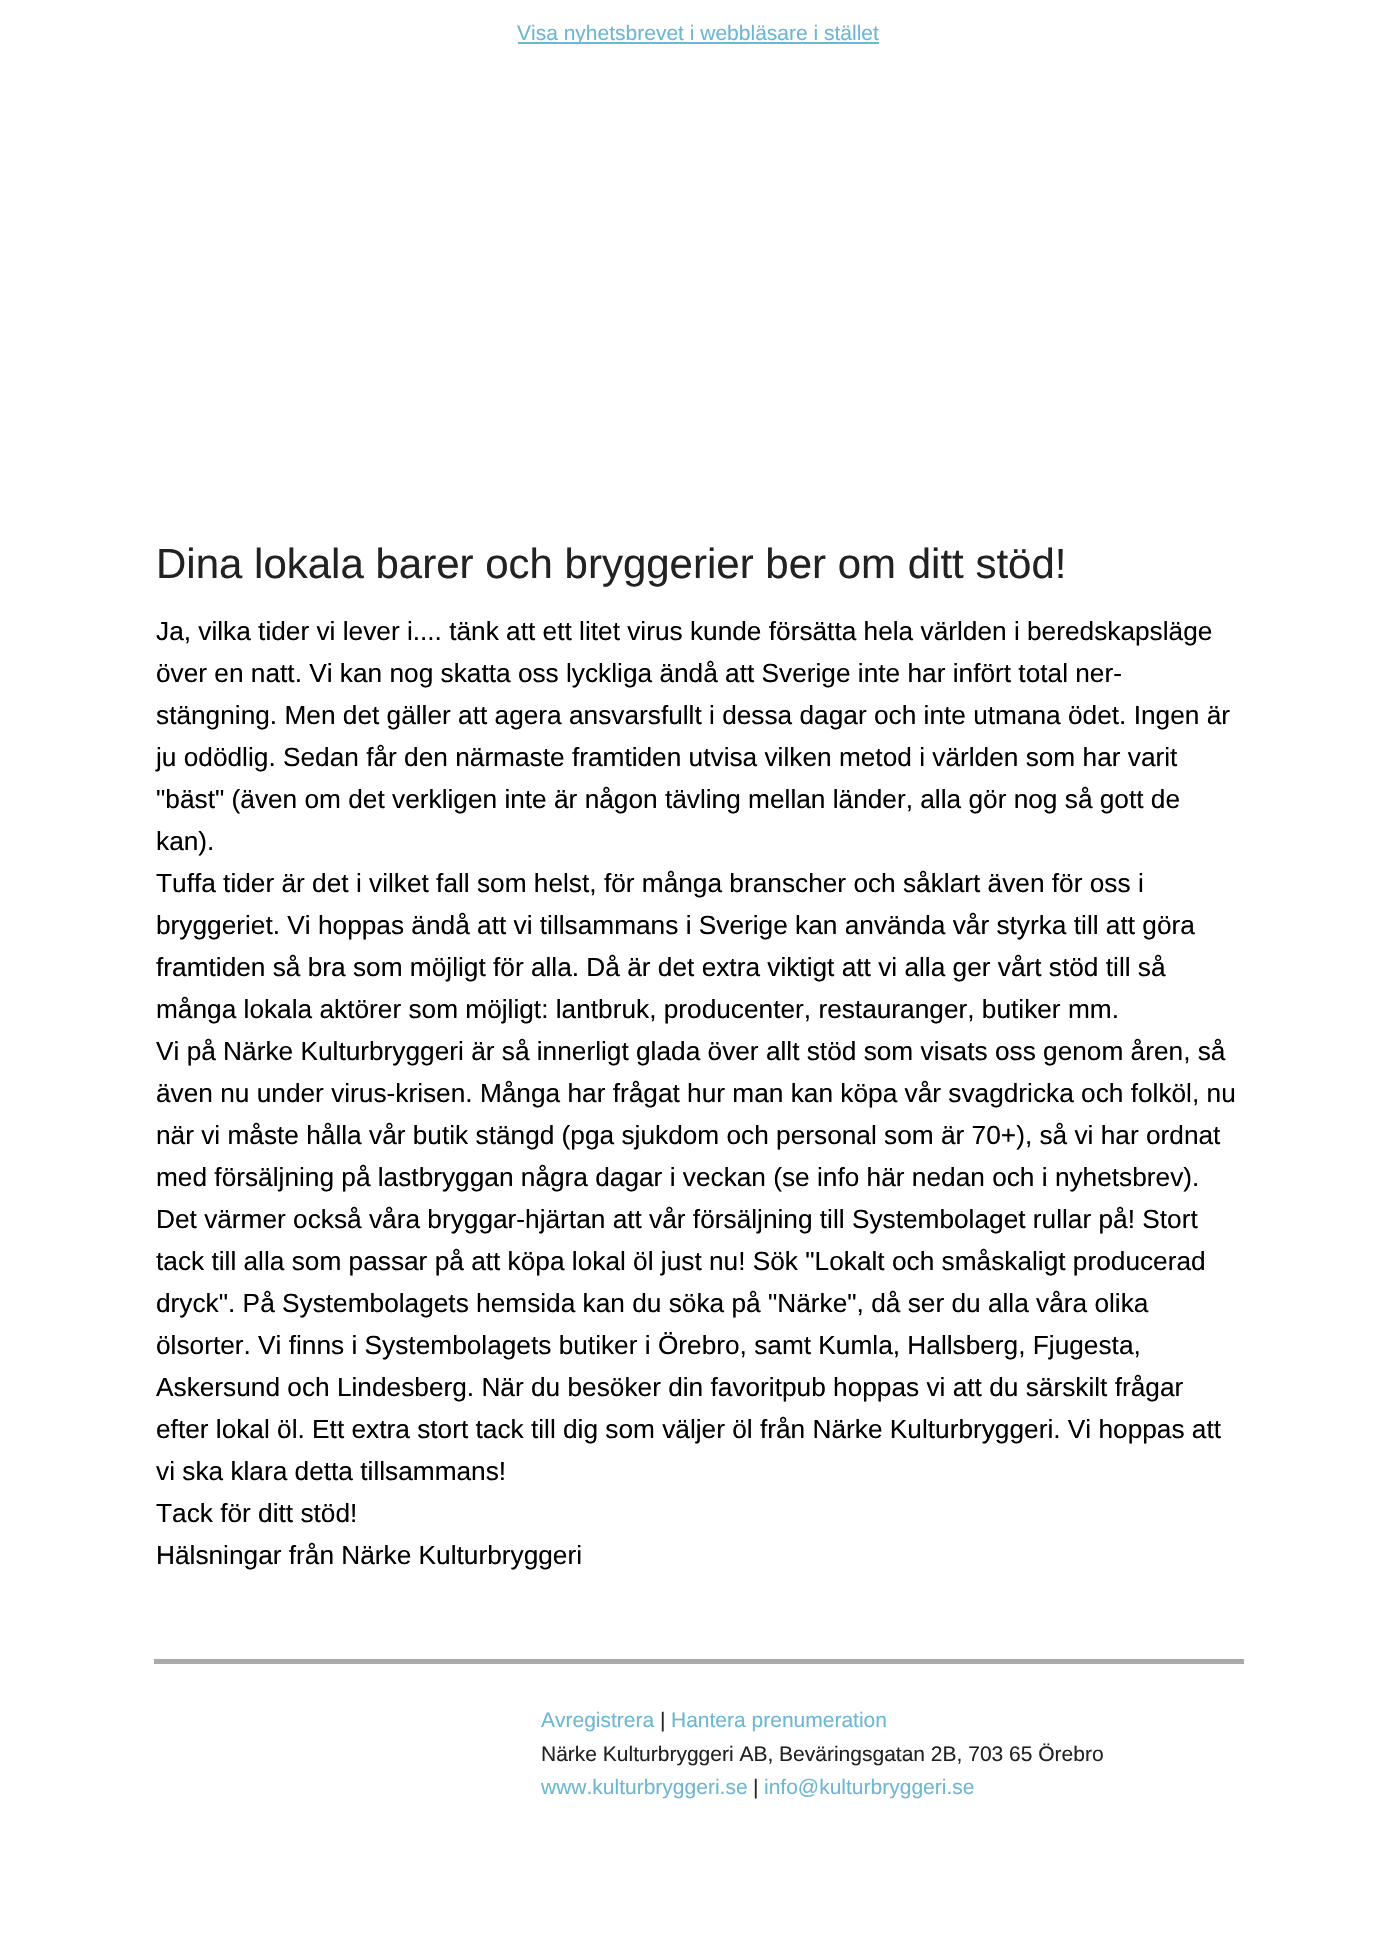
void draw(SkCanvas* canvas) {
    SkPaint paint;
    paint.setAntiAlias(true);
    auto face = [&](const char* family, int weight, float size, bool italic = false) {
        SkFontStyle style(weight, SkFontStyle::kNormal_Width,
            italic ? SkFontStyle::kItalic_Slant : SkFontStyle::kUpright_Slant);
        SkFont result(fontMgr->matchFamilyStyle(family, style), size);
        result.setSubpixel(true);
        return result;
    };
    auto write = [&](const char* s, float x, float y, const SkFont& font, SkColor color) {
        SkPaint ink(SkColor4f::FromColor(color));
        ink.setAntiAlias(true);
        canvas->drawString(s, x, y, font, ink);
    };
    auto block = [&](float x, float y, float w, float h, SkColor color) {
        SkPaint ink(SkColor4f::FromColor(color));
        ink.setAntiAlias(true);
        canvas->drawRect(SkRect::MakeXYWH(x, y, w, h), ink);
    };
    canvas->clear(SK_ColorWHITE);
    block(518, 42, 361, 2, SkColorSetRGB(108, 183, 212));
    auto kFont1 = face("Liberation Sans", 400, 21);
    write("Visa nyhetsbrevet i webbläsare i stället", 517, 40, kFont1, SkColorSetRGB(108, 183, 212));
    auto kFont2 = face("Liberation Sans", 400, 42);
    write("Dina lokala barer och bryggerier ber om ditt stöd!", 156, 578, kFont2, SkColorSetRGB(34, 34, 34));
    auto kFont3 = face("Liberation Sans", 400, 26.25f);
    write("Ja, vilka tider vi lever i.... tänk att ett litet virus kunde försätta hela världen i beredskapsläge", 156, 640, kFont3, SK_ColorBLACK);
    write("över en natt. Vi kan nog skatta oss lyckliga ändå att Sverige inte har infört total ner-", 156, 682, kFont3, SK_ColorBLACK);
    write("stängning. Men det gäller att agera ansvarsfullt i dessa dagar och inte utmana ödet. Ingen är", 156, 724, kFont3, SK_ColorBLACK);
    write("ju odödlig. Sedan får den närmaste framtiden utvisa vilken metod i världen som har varit", 156, 766, kFont3, SK_ColorBLACK);
    write("\"bäst\" (även om det verkligen inte är någon tävling mellan länder, alla gör nog så gott de", 156, 808, kFont3, SK_ColorBLACK);
    write("kan).", 156, 850, kFont3, SK_ColorBLACK);
    write("Tuffa tider är det i vilket fall som helst, för många branscher och såklart även för oss i", 156, 892, kFont3, SK_ColorBLACK);
    write("bryggeriet. Vi hoppas ändå att vi tillsammans i Sverige kan använda vår styrka till att göra", 156, 934, kFont3, SK_ColorBLACK);
    write("framtiden så bra som möjligt för alla. Då är det extra viktigt att vi alla ger vårt stöd till så", 156, 976, kFont3, SK_ColorBLACK);
    write("många lokala aktörer som möjligt: lantbruk, producenter, restauranger, butiker mm.", 156, 1018, kFont3, SK_ColorBLACK);
    write("Vi på Närke Kulturbryggeri är så innerligt glada över allt stöd som visats oss genom åren, så", 156, 1060, kFont3, SK_ColorBLACK);
    write("även nu under virus-krisen. Många har frågat hur man kan köpa vår svagdricka och folköl, nu", 156, 1102, kFont3, SK_ColorBLACK);
    write("när vi måste hålla vår butik stängd (pga sjukdom och personal som är 70+), så vi har ordnat", 156, 1144, kFont3, SK_ColorBLACK);
    write("med försäljning på lastbryggan några dagar i veckan (se info här nedan och i nyhetsbrev).", 156, 1186, kFont3, SK_ColorBLACK);
    write("Det värmer också våra bryggar-hjärtan att vår försäljning till Systembolaget rullar på! Stort", 156, 1228, kFont3, SK_ColorBLACK);
    write("tack till alla som passar på att köpa lokal öl just nu! Sök \"Lokalt och småskaligt producerad", 156, 1270, kFont3, SK_ColorBLACK);
    write("dryck\". På Systembolagets hemsida kan du söka på \"Närke\", då ser du alla våra olika", 156, 1312, kFont3, SK_ColorBLACK);
    write("ölsorter. Vi finns i Systembolagets butiker i Örebro, samt Kumla, Hallsberg, Fjugesta,", 156, 1354, kFont3, SK_ColorBLACK);
    write("Askersund och Lindesberg. När du besöker din favoritpub hoppas vi att du särskilt frågar", 156, 1396, kFont3, SK_ColorBLACK);
    write("efter lokal öl. Ett extra stort tack till dig som väljer öl från Närke Kulturbryggeri. Vi hoppas att", 156, 1438, kFont3, SK_ColorBLACK);
    write("vi ska klara detta tillsammans!", 156, 1480, kFont3, SK_ColorBLACK);
    write("Tack för ditt stöd!", 156, 1522, kFont3, SK_ColorBLACK);
    write("Hälsningar från Närke Kulturbryggeri", 156, 1564, kFont3, SK_ColorBLACK);
    block(154, 1659, 1090, 5, SkColorSetRGB(170, 170, 170));
    write("Avregistrera", 541, 1727, kFont1, SkColorSetRGB(108, 183, 212));
    write("|", 660, 1727, kFont1, SkColorSetRGB(34, 34, 34));
    write("Hantera prenumeration", 671, 1727, kFont1, SkColorSetRGB(108, 183, 212));
    write("Närke Kulturbryggeri AB, Beväringsgatan 2B, 703 65 Örebro", 541, 1761, kFont1, SkColorSetRGB(34, 34, 34));
    write("www.kulturbryggeri.se", 541, 1794, kFont1, SkColorSetRGB(108, 183, 212));
    write("|", 753, 1794, kFont1, SkColorSetRGB(34, 34, 34));
    write("info@kulturbryggeri.se", 764, 1794, kFont1, SkColorSetRGB(108, 183, 212));
}
